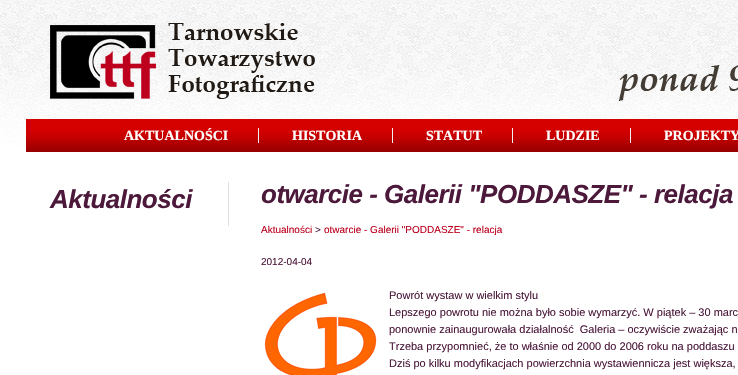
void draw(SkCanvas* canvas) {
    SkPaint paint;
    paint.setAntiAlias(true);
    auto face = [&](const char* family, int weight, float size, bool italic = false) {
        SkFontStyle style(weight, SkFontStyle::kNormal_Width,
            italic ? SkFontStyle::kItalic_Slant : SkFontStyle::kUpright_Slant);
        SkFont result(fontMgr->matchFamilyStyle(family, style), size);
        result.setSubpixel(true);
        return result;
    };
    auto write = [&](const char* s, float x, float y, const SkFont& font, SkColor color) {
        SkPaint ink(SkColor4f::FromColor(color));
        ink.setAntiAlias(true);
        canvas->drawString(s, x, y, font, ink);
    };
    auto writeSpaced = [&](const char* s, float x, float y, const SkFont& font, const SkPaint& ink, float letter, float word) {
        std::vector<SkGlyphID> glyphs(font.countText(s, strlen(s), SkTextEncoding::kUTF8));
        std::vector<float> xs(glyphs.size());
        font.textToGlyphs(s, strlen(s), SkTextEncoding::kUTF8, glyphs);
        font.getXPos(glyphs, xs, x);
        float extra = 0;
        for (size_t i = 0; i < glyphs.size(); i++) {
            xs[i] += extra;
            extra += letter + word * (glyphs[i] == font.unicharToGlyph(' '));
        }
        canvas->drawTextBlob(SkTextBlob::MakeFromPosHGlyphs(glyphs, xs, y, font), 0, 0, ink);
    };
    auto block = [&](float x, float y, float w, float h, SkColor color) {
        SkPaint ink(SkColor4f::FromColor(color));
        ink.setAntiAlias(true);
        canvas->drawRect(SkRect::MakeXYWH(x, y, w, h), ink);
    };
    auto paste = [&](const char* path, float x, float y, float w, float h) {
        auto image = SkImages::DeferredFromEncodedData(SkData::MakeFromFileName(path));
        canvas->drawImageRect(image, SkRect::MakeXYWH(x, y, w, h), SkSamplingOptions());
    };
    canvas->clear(SK_ColorWHITE);
    paste("pic1.png", 0, 0, 738, 152);
    paste("pic2.png", 50, 25, 106, 74);
    paste("pic3.png", 168, 23, 147, 76);
    auto kFont1 = face("Liberation Serif", 700, 14);
    write("AKTUALNOŚCI", 124, 140, kFont1, SK_ColorWHITE);
    block(258, 128, 1, 15, SkColorSetRGB(240, 240, 240));
    write("HISTORIA", 292, 140, kFont1, SK_ColorWHITE);
    block(392, 128, 1, 15, SkColorSetRGB(240, 240, 240));
    write("STATUT", 426, 140, kFont1, SK_ColorWHITE);
    block(512, 128, 1, 15, SkColorSetRGB(240, 240, 240));
    write("LUDZIE", 546, 140, kFont1, SK_ColorWHITE);
    block(630, 128, 1, 15, SkColorSetRGB(240, 240, 240));
    write("PROJEKTY", 664, 140, kFont1, SK_ColorWHITE);
    block(228, 182, 1, 44, SkColorSetRGB(224, 224, 224));
    auto kFont2 = face("Liberation Sans", 700, 26, true);
    paint.setColor(SkColorSetRGB(76, 25, 59));
    writeSpaced("Aktualności", 50, 208, kFont2, paint, -0.5f, 0);
    writeSpaced("otwarcie - Galerii \"PODDASZE\" - relacja", 261, 203, kFont2, paint, -0.5f, 0);
    auto kFont3 = face("Liberation Sans", 400, 10);
    write("Aktualności", 261, 233, kFont3, SkColorSetRGB(188, 0, 29));
    write(">", 315, 233, kFont3, SkColorSetRGB(76, 25, 59));
    write("otwarcie - Galerii \"PODDASZE\" - relacja", 324, 233, kFont3, SkColorSetRGB(188, 0, 29));
    write("2012-04-04", 261, 265, kFont3, SkColorSetRGB(76, 25, 59));
    paste("pic4.png", 264, 292, 113, 83);
    auto kFont4 = face("Liberation Sans", 400, 11);
    write("Powrót wystaw w wielkim stylu", 389, 299, kFont4, SkColorSetRGB(76, 25, 59));
    write("Lepszego powrotu nie można było sobie wymarzyć. W piątek – 30 marc", 389, 316, kFont4, SkColorSetRGB(76, 25, 59));
    write("ponownie zainaugurowała działalność  Galeria – oczywiście zważając n", 389, 333, kFont4, SkColorSetRGB(76, 25, 59));
    write("Trzeba przypomnieć, że to właśnie od 2000 do 2006 roku na poddaszu", 389, 350, kFont4, SkColorSetRGB(76, 25, 59));
    write("Dziś po kilku modyfikacjach powierzchnia wystawiennicza jest większa,", 389, 367, kFont4, SkColorSetRGB(76, 25, 59));
}
